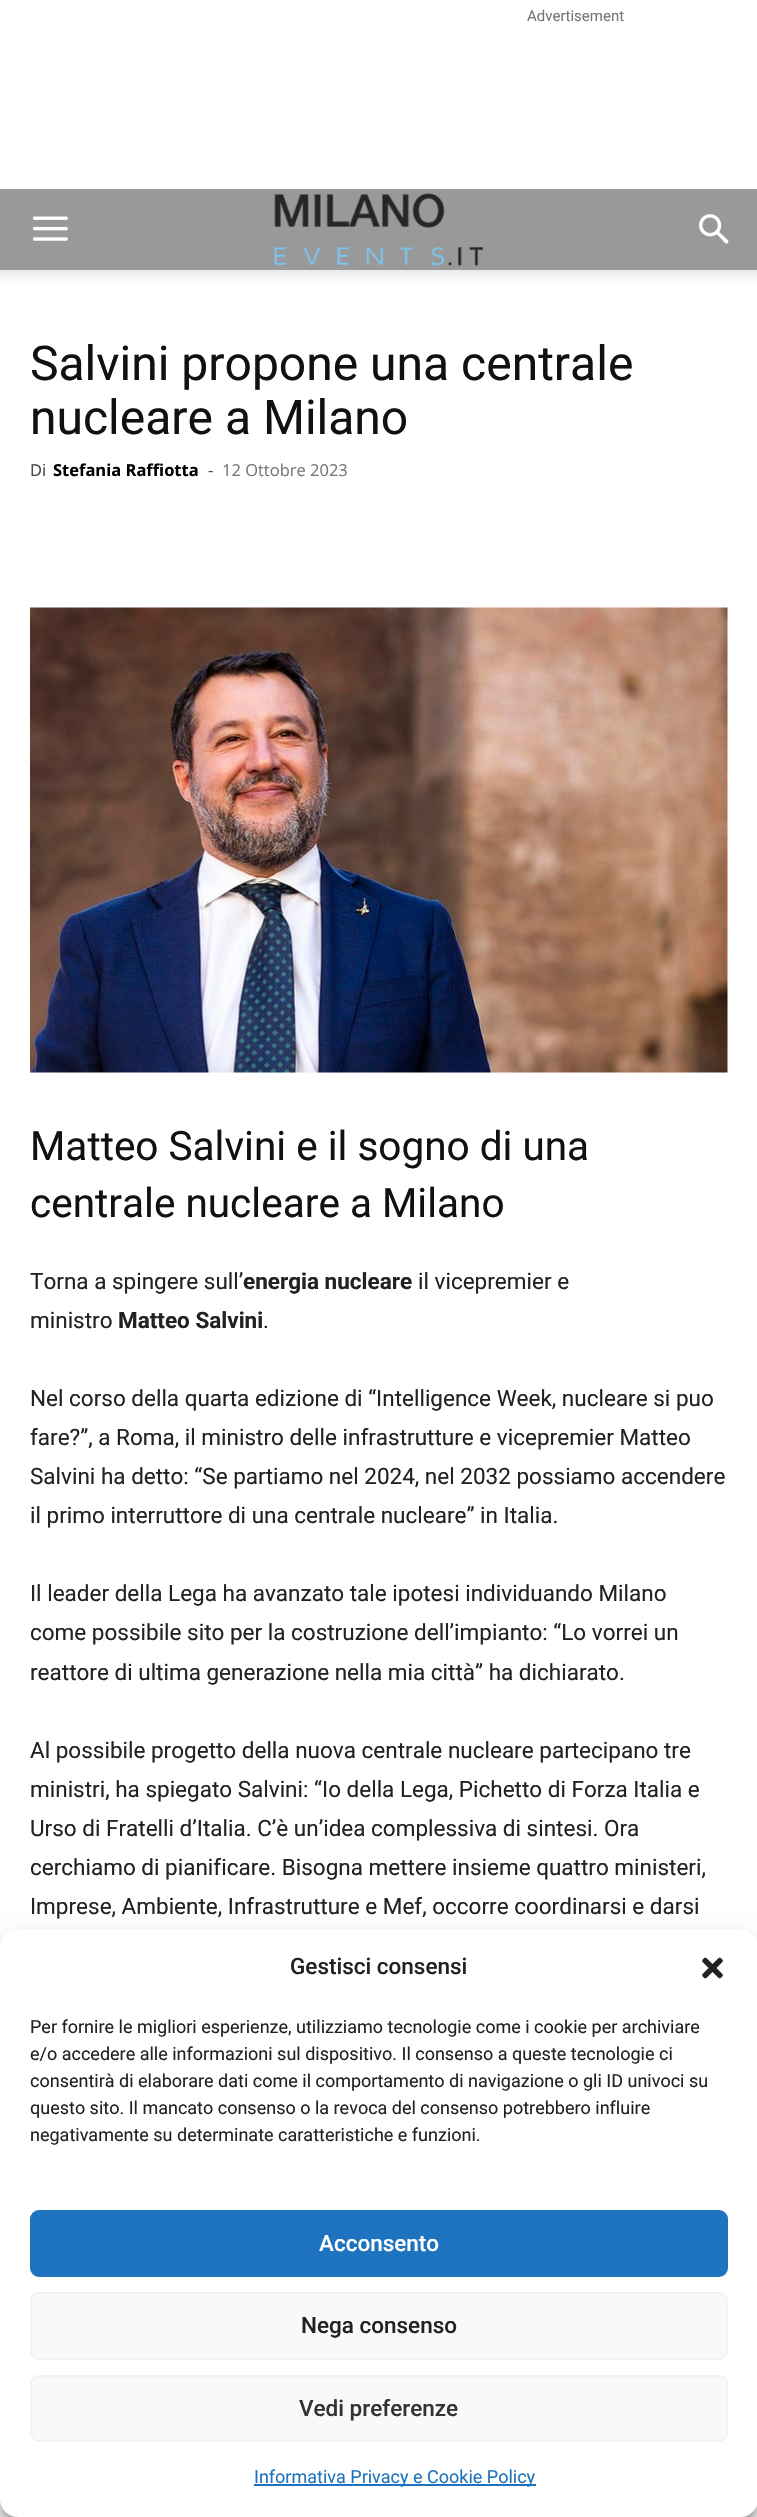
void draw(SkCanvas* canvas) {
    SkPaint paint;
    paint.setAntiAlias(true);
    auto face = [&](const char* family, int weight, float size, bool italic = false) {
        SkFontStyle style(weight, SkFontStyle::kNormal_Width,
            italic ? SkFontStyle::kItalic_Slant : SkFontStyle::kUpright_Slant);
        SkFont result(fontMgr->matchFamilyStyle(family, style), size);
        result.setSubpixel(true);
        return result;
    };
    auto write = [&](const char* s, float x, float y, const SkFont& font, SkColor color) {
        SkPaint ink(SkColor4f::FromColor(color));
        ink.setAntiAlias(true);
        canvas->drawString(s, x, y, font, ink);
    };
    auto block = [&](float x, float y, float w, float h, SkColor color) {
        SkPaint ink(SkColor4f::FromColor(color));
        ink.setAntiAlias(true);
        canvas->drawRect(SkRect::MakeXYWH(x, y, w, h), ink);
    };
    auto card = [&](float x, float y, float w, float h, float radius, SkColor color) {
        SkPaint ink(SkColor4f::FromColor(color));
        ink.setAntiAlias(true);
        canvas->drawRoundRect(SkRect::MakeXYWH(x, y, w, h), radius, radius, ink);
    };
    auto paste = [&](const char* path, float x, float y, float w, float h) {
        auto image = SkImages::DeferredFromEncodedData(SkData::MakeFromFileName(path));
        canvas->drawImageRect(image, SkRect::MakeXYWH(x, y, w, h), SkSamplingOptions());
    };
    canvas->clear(SK_ColorWHITE);
    auto kFont1 = face("Roboto", 400, 15);
    write("Advertisement", 527, 21, kFont1, SkColorSetRGB(118, 118, 118));
    block(0, 189, 757, 81, SkColorSetRGB(153, 153, 153));
    paste("pic1.png", 33, 216, 35, 25);
    paste("pic2.png", 274, 193, 209, 73);
    paste("pic3.png", 699, 214, 30, 30);
    paste("pic4.png", 0, 270, 757, 13);
    auto kFont2 = face("Roboto", 400, 48);
    write("Salvini propone una centrale", 30, 380, kFont2, SkColorSetRGB(17, 17, 17));
    write("nucleare a Milano", 30, 434, kFont2, SkColorSetRGB(17, 17, 17));
    auto kFont3 = face("Open Sans", 400, 16.5f);
    write("Di", 30, 476, kFont3, SkColorSetRGB(68, 68, 68));
    auto kFont4 = face("Open Sans", 700, 16.5f);
    write("Stefania Raffiotta", 53, 476, kFont4, SK_ColorBLACK);
    write("-", 208, 476, kFont3, SkColorSetRGB(68, 68, 68));
    write("12 Ottobre 2023", 222, 476, kFont3, SkColorSetRGB(118, 118, 118));
    paste("pic5.png", 30, 607, 698, 466);
    auto kFont5 = face("Roboto", 400, 40.5f);
    write("Matteo Salvini e il sogno di una", 30, 1160, kFont5, SkColorSetRGB(17, 17, 17));
    write("centrale nucleare a Milano", 30, 1217, kFont5, SkColorSetRGB(17, 17, 17));
    auto kFont6 = face("Roboto", 400, 22.5f);
    write("Torna a spingere sull’", 30, 1289, kFont6, SkColorSetRGB(34, 34, 34));
    auto kFont7 = face("Roboto", 700, 22.5f);
    write("energia nucleare", 243, 1289, kFont7, SkColorSetRGB(34, 34, 34));
    write("il vicepremier e", 418, 1289, kFont6, SkColorSetRGB(34, 34, 34));
    write("ministro", 30, 1328, kFont6, SkColorSetRGB(34, 34, 34));
    write("Matteo Salvini", 118, 1328, kFont7, SkColorSetRGB(34, 34, 34));
    write(".", 263, 1328, kFont6, SkColorSetRGB(34, 34, 34));
    write("Nel corso della quarta edizione di “Intelligence Week, nucleare si puo", 30, 1406, kFont6, SkColorSetRGB(34, 34, 34));
    write("fare?”, a Roma, il ministro delle infrastrutture e vicepremier Matteo", 30, 1445, kFont6, SkColorSetRGB(34, 34, 34));
    write("Salvini ha detto: “Se partiamo nel 2024, nel 2032 possiamo accendere", 30, 1484, kFont6, SkColorSetRGB(34, 34, 34));
    write("il primo interruttore di una centrale nucleare” in Italia.", 30, 1523, kFont6, SkColorSetRGB(34, 34, 34));
    write("Il leader della Lega ha avanzato tale ipotesi individuando Milano", 30, 1601, kFont6, SkColorSetRGB(34, 34, 34));
    write("come possibile sito per la costruzione dell’impianto: “Lo vorrei un", 30, 1640, kFont6, SkColorSetRGB(34, 34, 34));
    write("reattore di ultima generazione nella mia città” ha dichiarato.", 30, 1680, kFont6, SkColorSetRGB(34, 34, 34));
    write("Al possibile progetto della nuova centrale nucleare partecipano tre", 30, 1758, kFont6, SkColorSetRGB(34, 34, 34));
    write("ministri, ha spiegato Salvini: “Io della Lega, Pichetto di Forza Italia e", 30, 1797, kFont6, SkColorSetRGB(34, 34, 34));
    write("Urso di Fratelli d’Italia. C’è un’idea complessiva di sintesi. Ora", 30, 1836, kFont6, SkColorSetRGB(34, 34, 34));
    write("cerchiamo di pianificare. Bisogna mettere insieme quattro ministeri,", 30, 1875, kFont6, SkColorSetRGB(34, 34, 34));
    write("Imprese, Ambiente, Infrastrutture e Mef, occorre coordinarsi e darsi", 30, 1914, kFont6, SkColorSetRGB(34, 34, 34));
    paint.setColor(SkColorSetARGB(59, 0, 0, 0));
    paint.setMaskFilter(SkMaskFilter::MakeBlur(kNormal_SkBlurStyle, 4.5f));
    canvas->drawRoundRect(SkRect::MakeXYWH(0, 1938, 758, 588), 18, 18, paint);
    paint.setMaskFilter(nullptr);
    paint.setColor(SkColorSetARGB(48, 0, 0, 0));
    paint.setMaskFilter(SkMaskFilter::MakeBlur(kNormal_SkBlurStyle, 15));
    canvas->drawRoundRect(SkRect::MakeXYWH(0, 1944, 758, 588), 18, 18, paint);
    paint.setMaskFilter(nullptr);
    card(0, 1929, 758, 588, 18, SK_ColorWHITE);
    auto kFont8 = face("Roboto", 500, 22.5f);
    write("Gestisci consensi", 290, 1974, kFont8, SkColorSetRGB(34, 34, 34));
    paste("pic6.png", 702, 1957, 21, 22);
    auto kFont9 = face("Roboto", 400, 18);
    write("Per fornire le migliori esperienze, utilizziamo tecnologie come i cookie per archiviare", 30, 2033, kFont9, SkColorSetRGB(34, 34, 34));
    write("e/o accedere alle informazioni sul dispositivo. Il consenso a queste tecnologie ci", 30, 2060, kFont9, SkColorSetRGB(34, 34, 34));
    write("consentirà di elaborare dati come il comportamento di navigazione o gli ID univoci su", 30, 2087, kFont9, SkColorSetRGB(34, 34, 34));
    write("questo sito. Il mancato consenso o la revoca del consenso potrebbero influire", 30, 2114, kFont9, SkColorSetRGB(34, 34, 34));
    write("negativamente su determinate caratteristiche e funzioni.", 30, 2141, kFont9, SkColorSetRGB(34, 34, 34));
    paint.setColor(SkColorSetRGB(30, 115, 190));
    canvas->drawRoundRect(SkRect::MakeXYWH(31, 2211, 696, 65), 8, 8, paint);
    paint.setStyle(SkPaint::kStroke_Style);
    paint.setStrokeWidth(2);
    canvas->drawRoundRect(SkRect::MakeXYWH(31, 2211, 696, 65), 8, 8, paint);
    write("Acconsento", 319, 2251, kFont8, SK_ColorWHITE);
    paint.setStyle(SkPaint::kFill_Style);
    paint.setColor(SkColorSetRGB(249, 249, 249));
    canvas->drawRoundRect(SkRect::MakeXYWH(31, 2293, 696, 66), 8, 8, paint);
    paint.setStyle(SkPaint::kStroke_Style);
    paint.setColor(SkColorSetRGB(242, 242, 242));
    canvas->drawRoundRect(SkRect::MakeXYWH(31, 2293, 696, 66), 8, 8, paint);
    write("Nega consenso", 301, 2333, kFont8, SkColorSetRGB(34, 34, 34));
    paint.setStyle(SkPaint::kFill_Style);
    paint.setColor(SkColorSetRGB(249, 249, 249));
    canvas->drawRoundRect(SkRect::MakeXYWH(31, 2376, 696, 65), 8, 8, paint);
    paint.setStyle(SkPaint::kStroke_Style);
    paint.setColor(SkColorSetRGB(242, 242, 242));
    canvas->drawRoundRect(SkRect::MakeXYWH(31, 2376, 696, 65), 8, 8, paint);
    write("Vedi preferenze", 299, 2416, kFont8, SkColorSetRGB(51, 51, 51));
    block(254, 2484, 282, 2, SkColorSetRGB(30, 115, 190));
    write("Informativa Privacy e Cookie Policy", 254, 2483, kFont9, SkColorSetRGB(30, 115, 190));
}
